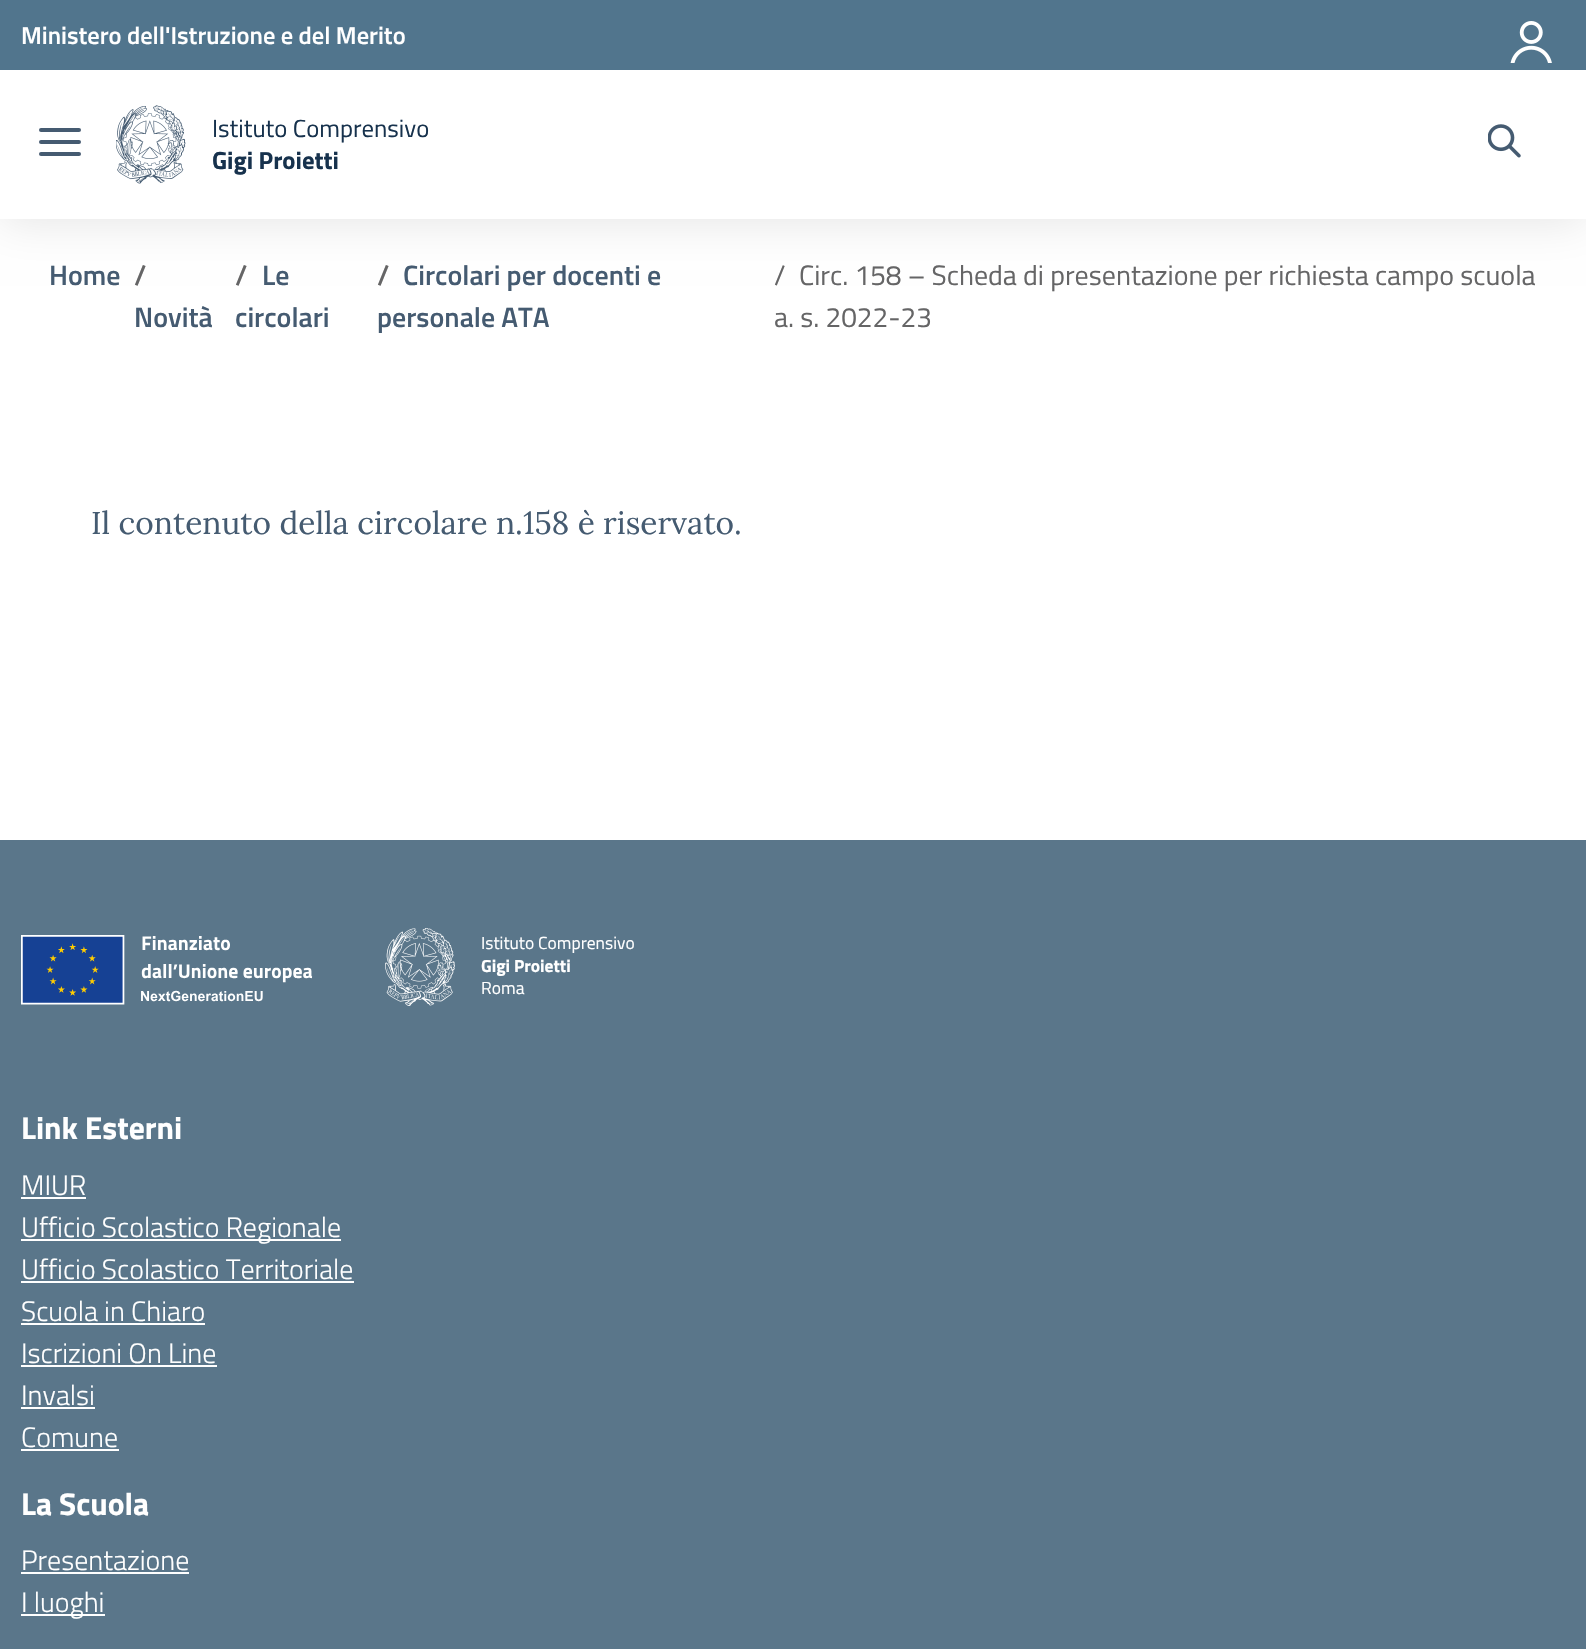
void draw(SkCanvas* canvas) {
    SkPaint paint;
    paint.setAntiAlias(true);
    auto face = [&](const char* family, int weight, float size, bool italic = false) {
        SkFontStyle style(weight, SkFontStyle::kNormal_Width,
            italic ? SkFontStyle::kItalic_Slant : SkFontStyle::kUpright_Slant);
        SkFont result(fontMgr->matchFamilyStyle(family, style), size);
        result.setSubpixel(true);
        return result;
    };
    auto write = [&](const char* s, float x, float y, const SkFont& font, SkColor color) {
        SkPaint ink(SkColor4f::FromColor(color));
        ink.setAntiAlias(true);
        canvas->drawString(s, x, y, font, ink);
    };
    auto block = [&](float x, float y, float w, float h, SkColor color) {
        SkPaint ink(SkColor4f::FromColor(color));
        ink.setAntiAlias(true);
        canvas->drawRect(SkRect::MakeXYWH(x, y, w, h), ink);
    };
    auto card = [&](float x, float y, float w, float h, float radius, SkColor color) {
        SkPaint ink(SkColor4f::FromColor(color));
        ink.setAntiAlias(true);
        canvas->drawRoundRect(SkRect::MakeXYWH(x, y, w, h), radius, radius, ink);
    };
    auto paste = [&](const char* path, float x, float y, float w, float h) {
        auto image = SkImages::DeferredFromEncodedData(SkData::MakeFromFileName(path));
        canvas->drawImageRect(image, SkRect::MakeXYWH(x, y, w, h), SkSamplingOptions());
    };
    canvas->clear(SK_ColorWHITE);
    paint.setColor(SkColorSetARGB(26, 0, 0, 0));
    paint.setMaskFilter(SkMaskFilter::MakeBlur(kNormal_SkBlurStyle, 21.5f));
    canvas->drawRect(SkRect::MakeXYWH(0, 4, 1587, 218), paint);
    paint.setMaskFilter(nullptr);
    block(0, 70, 1586, 149, SK_ColorWHITE);
    block(0, 0, 1586, 70, SkColorSetRGB(81, 117, 141));
    auto kFont1 = face("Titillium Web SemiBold", 600, 24.5f);
    write("Ministero dell'Istruzione e del Merito", 21, 44, kFont1, SK_ColorWHITE);
    paste("pic1.png", 1510, 21, 42, 42);
    card(39, 140, 42, 4, 2, SkColorSetRGB(69, 91, 113));
    card(39, 128, 42, 4, 2, SkColorSetRGB(69, 91, 113));
    card(39, 152, 42, 4, 2, SkColorSetRGB(69, 91, 113));
    paste("pic2.png", 116, 105, 70, 79);
    auto kFont2 = face("Titillium Web", 400, 24.75f);
    write("Istituto Comprensivo", 212, 137, kFont2, SkColorSetRGB(23, 50, 77));
    auto kFont3 = face("Titillium Web", 700, 24.75f);
    write("Gigi Proietti", 212, 169, kFont3, SkColorSetRGB(23, 50, 77));
    paste("pic3.png", 1488, 124, 33, 34);
    auto kFont4 = face("Titillium Web SemiBold", 600, 28);
    write("Home", 49, 285, kFont4, SkColorSetRGB(69, 91, 113));
    write("/", 134, 285, kFont4, SkColorSetRGB(101, 101, 102));
    write("Novità", 134, 327, kFont4, SkColorSetRGB(69, 91, 113));
    write("/", 235, 285, kFont4, SkColorSetRGB(101, 101, 102));
    write("Le", 262, 285, kFont4, SkColorSetRGB(69, 91, 113));
    write("circolari", 235, 327, kFont4, SkColorSetRGB(69, 91, 113));
    write("/", 377, 285, kFont4, SkColorSetRGB(101, 101, 102));
    write("Circolari per docenti e", 403, 285, kFont4, SkColorSetRGB(69, 91, 113));
    write("personale ATA", 377, 327, kFont4, SkColorSetRGB(69, 91, 113));
    auto kFont5 = face("Titillium Web", 400, 28);
    write("/", 774, 285, kFont5, SkColorSetRGB(101, 101, 102));
    write("Circ. 158 – Scheda di presentazione per richiesta campo scuola", 799, 285, kFont5, SkColorSetRGB(101, 101, 102));
    write("a. s. 2022-23", 774, 327, kFont5, SkColorSetRGB(101, 101, 102));
    auto kFont6 = face("Lora", 400, 31.6f);
    write("Il contenuto della circolare n.158 è riservato.", 91, 534, kFont6, SkColorSetRGB(69, 91, 113));
    block(0, 840, 1586, 809, SkColorSetRGB(90, 118, 138));
    paste("pic4.png", 21, 935, 292, 70);
    paste("pic5.png", 385, 928, 70, 78);
    auto kFont7 = face("Titillium Web", 400, 17.5f);
    write("Istituto Comprensivo", 481, 949, kFont7, SK_ColorWHITE);
    auto kFont8 = face("Titillium Web", 700, 17.5f);
    write("Gigi Proietti", 481, 972, kFont8, SK_ColorWHITE);
    write("Roma", 481, 994, kFont7, SK_ColorWHITE);
    auto kFont9 = face("Titillium Web", 700, 31.6f);
    write("Link Esterni", 21, 1139, kFont9, SK_ColorWHITE);
    auto kFont10 = face("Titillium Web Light", 300, 28);
    write("MIUR", 21, 1195, kFont10, SK_ColorWHITE);
    block(21, 1197, 65, 2, SK_ColorWHITE);
    block(21, 1239, 320, 2, SK_ColorWHITE);
    write("Ufficio Scolastico Regionale", 21, 1237, kFont10, SK_ColorWHITE);
    write("Ufficio Scolastico Territoriale", 21, 1279, kFont10, SK_ColorWHITE);
    block(21, 1281, 333, 2, SK_ColorWHITE);
    write("Scuola in Chiaro", 21, 1321, kFont10, SK_ColorWHITE);
    block(21, 1323, 184, 2, SK_ColorWHITE);
    write("Iscrizioni On Line", 21, 1363, kFont10, SK_ColorWHITE);
    block(21, 1365, 196, 2, SK_ColorWHITE);
    write("Invalsi", 21, 1405, kFont10, SK_ColorWHITE);
    block(21, 1407, 74, 2, SK_ColorWHITE);
    write("Comune", 21, 1447, kFont10, SK_ColorWHITE);
    block(21, 1449, 98, 2, SK_ColorWHITE);
    write("La Scuola", 21, 1515, kFont9, SK_ColorWHITE);
    write("Presentazione", 21, 1570, kFont10, SK_ColorWHITE);
    block(21, 1572, 168, 2, SK_ColorWHITE);
    block(21, 1614, 84, 2, SK_ColorWHITE);
    write("I luoghi", 21, 1612, kFont10, SK_ColorWHITE);
}
